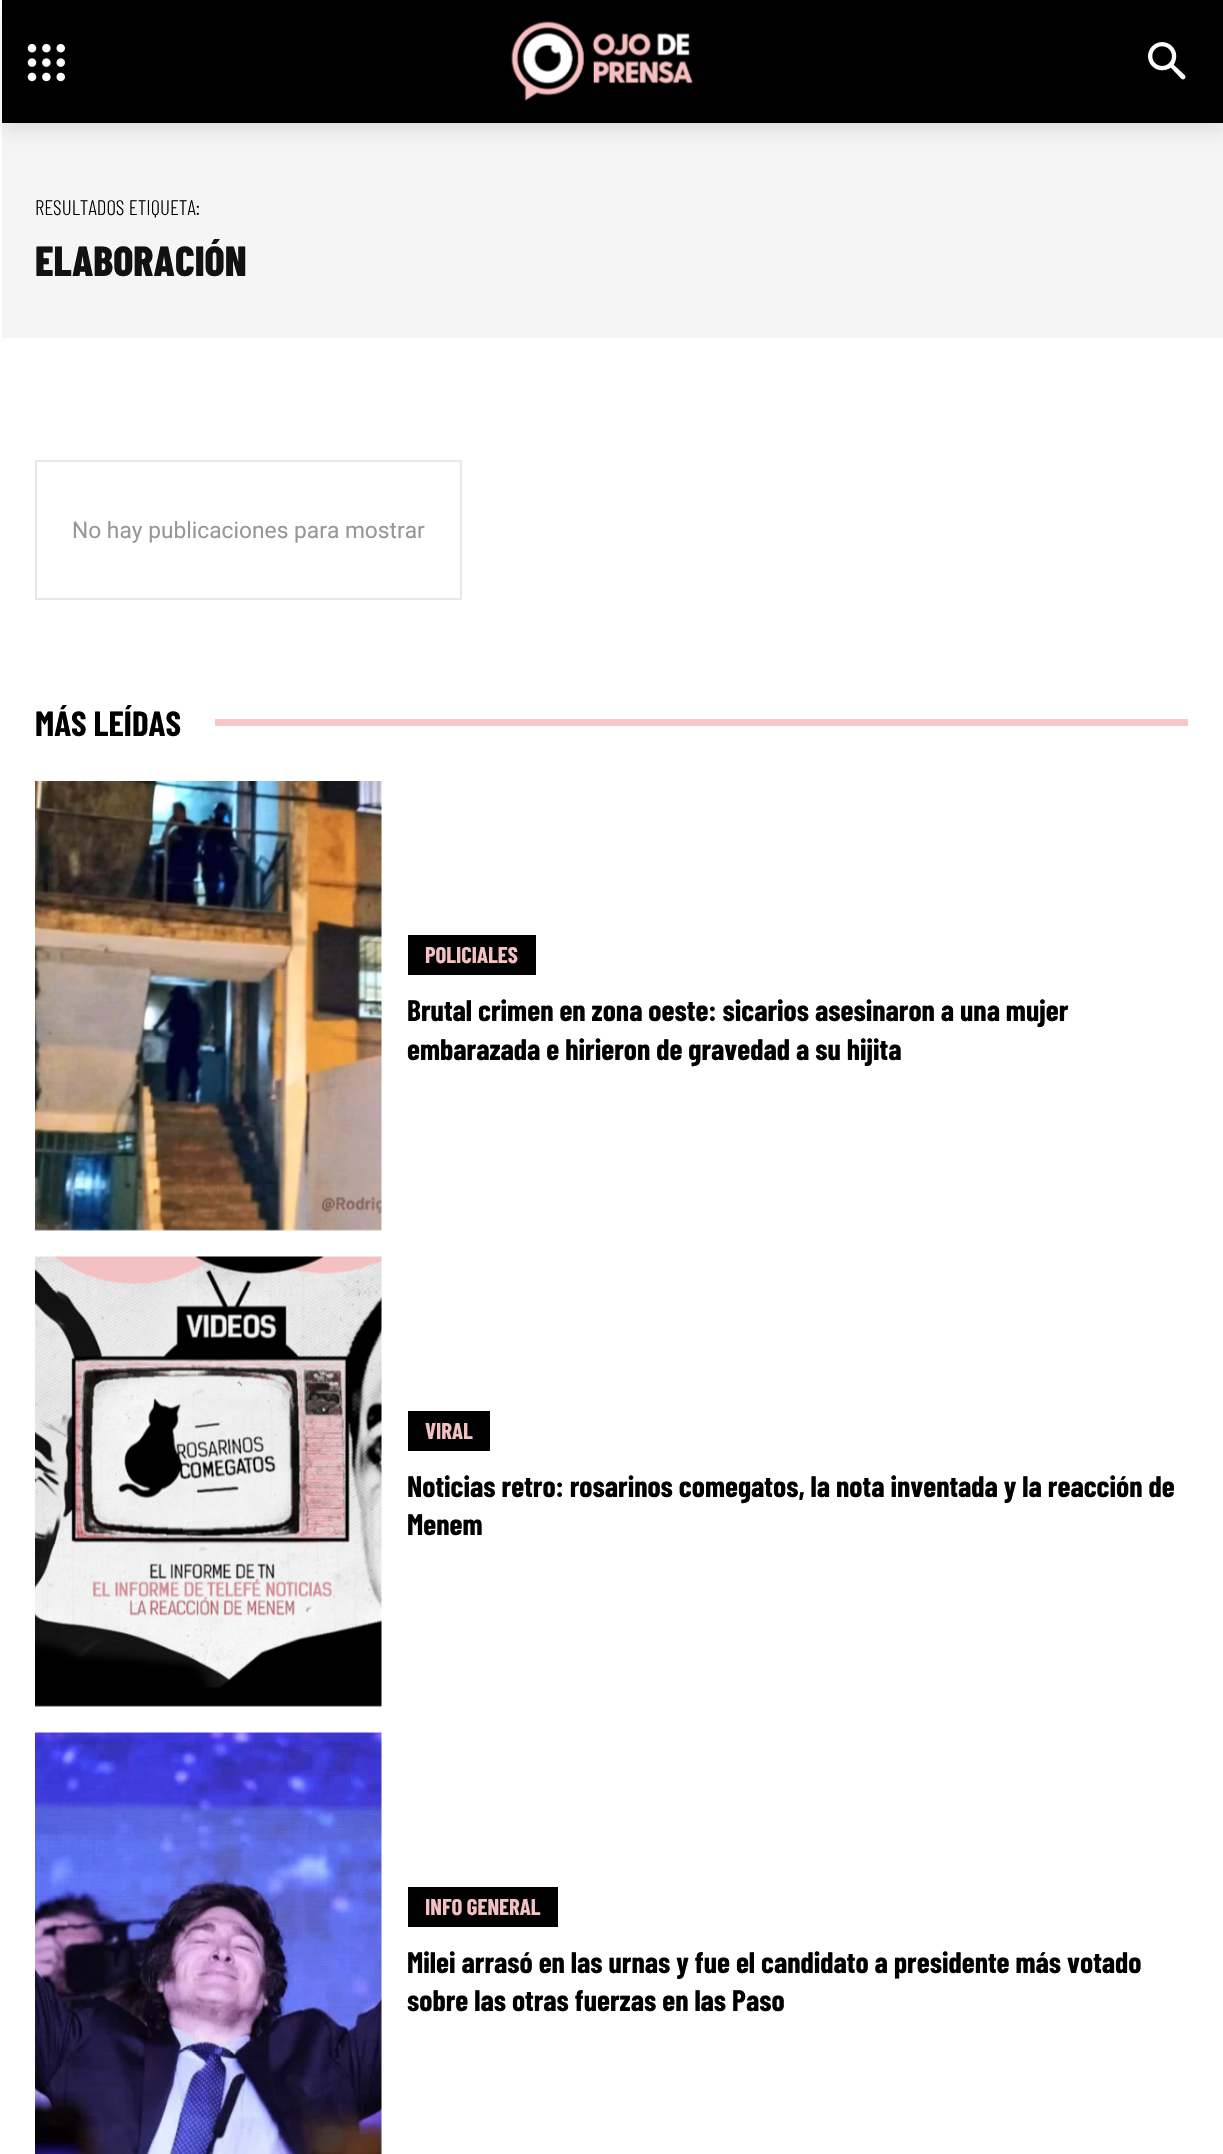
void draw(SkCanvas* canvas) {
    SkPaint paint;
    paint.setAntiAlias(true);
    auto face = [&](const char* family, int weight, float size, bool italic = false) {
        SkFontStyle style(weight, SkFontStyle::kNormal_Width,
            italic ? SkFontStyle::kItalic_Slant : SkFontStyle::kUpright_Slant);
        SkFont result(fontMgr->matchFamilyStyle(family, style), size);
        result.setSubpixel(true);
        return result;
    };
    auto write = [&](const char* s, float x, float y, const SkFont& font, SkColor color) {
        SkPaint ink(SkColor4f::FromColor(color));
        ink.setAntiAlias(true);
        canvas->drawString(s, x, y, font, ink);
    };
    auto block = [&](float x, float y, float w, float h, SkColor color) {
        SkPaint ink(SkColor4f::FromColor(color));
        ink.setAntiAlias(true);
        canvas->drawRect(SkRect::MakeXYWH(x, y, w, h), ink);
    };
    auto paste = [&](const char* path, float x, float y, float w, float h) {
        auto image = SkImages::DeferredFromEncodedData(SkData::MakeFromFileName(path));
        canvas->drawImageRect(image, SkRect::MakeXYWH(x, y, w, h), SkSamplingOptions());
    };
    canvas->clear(SK_ColorWHITE);
    block(2, 0, 1221, 123, SK_ColorBLACK);
    paste("pic1.png", 27, 44, 38, 38);
    paste("pic2.png", 511, 21, 182, 80);
    paste("pic3.png", 1148, 42, 38, 38);
    block(2, 123, 1221, 215, SkColorSetRGB(245, 245, 245));
    canvas->save();
    canvas->clipPath(SkPathBuilder(SkPathFillType::kEvenOdd).moveTo(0, 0).lineTo(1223, 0).lineTo(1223, 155).lineTo(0, 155).close().moveTo(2, 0).lineTo(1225, 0).lineTo(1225, 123).lineTo(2, 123).close().detach(), true);
    paint.setColor(SkColorSetARGB(20, 0, 0, 0));
    paint.setMaskFilter(SkMaskFilter::MakeBlur(kNormal_SkBlurStyle, 7));
    canvas->drawRect(SkRect::MakeXYWH(2, 11, 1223, 122), paint);
    paint.setMaskFilter(nullptr);
    canvas->restore();
    auto kFont1 = face("Barlow Condensed", 300, 21);
    write("RESULTADOS ETIQUETA:", 35, 215, kFont1, SK_ColorBLACK);
    auto kFont2 = face("Barlow Condensed", 800, 42);
    write("ELABORACIÓN", 35, 276, kFont2, SkColorSetRGB(17, 17, 17));
    paint.setStyle(SkPaint::kStroke_Style);
    paint.setStrokeWidth(2);
    paint.setColor(SkColorSetRGB(232, 232, 232));
    canvas->drawRect(SkRect::MakeXYWH(36, 461, 425, 138), paint);
    auto kFont3 = face("Roboto", 400, 22.75f);
    write("No hay publicaciones para mostrar", 72, 538, kFont3, SkColorSetRGB(151, 151, 151));
    auto kFont4 = face("Barlow Condensed", 700, 35);
    write("MÁS LEÍDAS", 35, 736, kFont4, SK_ColorBLACK);
    block(215, 719, 973, 7, SkColorSetRGB(249, 199, 200));
    paste("pic4.png", 35, 781, 347, 450);
    block(408, 935, 128, 40, SK_ColorBLACK);
    auto kFont5 = face("Barlow Condensed", 700, 22.75f);
    write("POLICIALES", 425, 963, kFont5, SkColorSetRGB(244, 193, 194));
    auto kFont6 = face("Barlow Condensed", 700, 29.75f);
    write("Brutal crimen en zona oeste: sicarios asesinaron a una mujer", 407, 1021, kFont6, SK_ColorBLACK);
    write("embarazada e hirieron de gravedad a su hijita", 407, 1060, kFont6, SK_ColorBLACK);
    paste("pic5.png", 35, 1256, 347, 451);
    block(408, 1411, 82, 40, SK_ColorBLACK);
    write("VIRAL", 425, 1439, kFont5, SkColorSetRGB(244, 193, 194));
    write("Noticias retro: rosarinos comegatos, la nota inventada y la reacción de", 407, 1497, kFont6, SK_ColorBLACK);
    write("Menem", 407, 1535, kFont6, SK_ColorBLACK);
    paste("pic6.png", 35, 1732, 347, 422);
    block(408, 1887, 150, 40, SK_ColorBLACK);
    write("INFO GENERAL", 425, 1915, kFont5, SkColorSetRGB(244, 193, 194));
    write("Milei arrasó en las urnas y fue el candidato a presidente más votado", 407, 1973, kFont6, SK_ColorBLACK);
    write("sobre las otras fuerzas en las Paso", 407, 2011, kFont6, SK_ColorBLACK);
}
